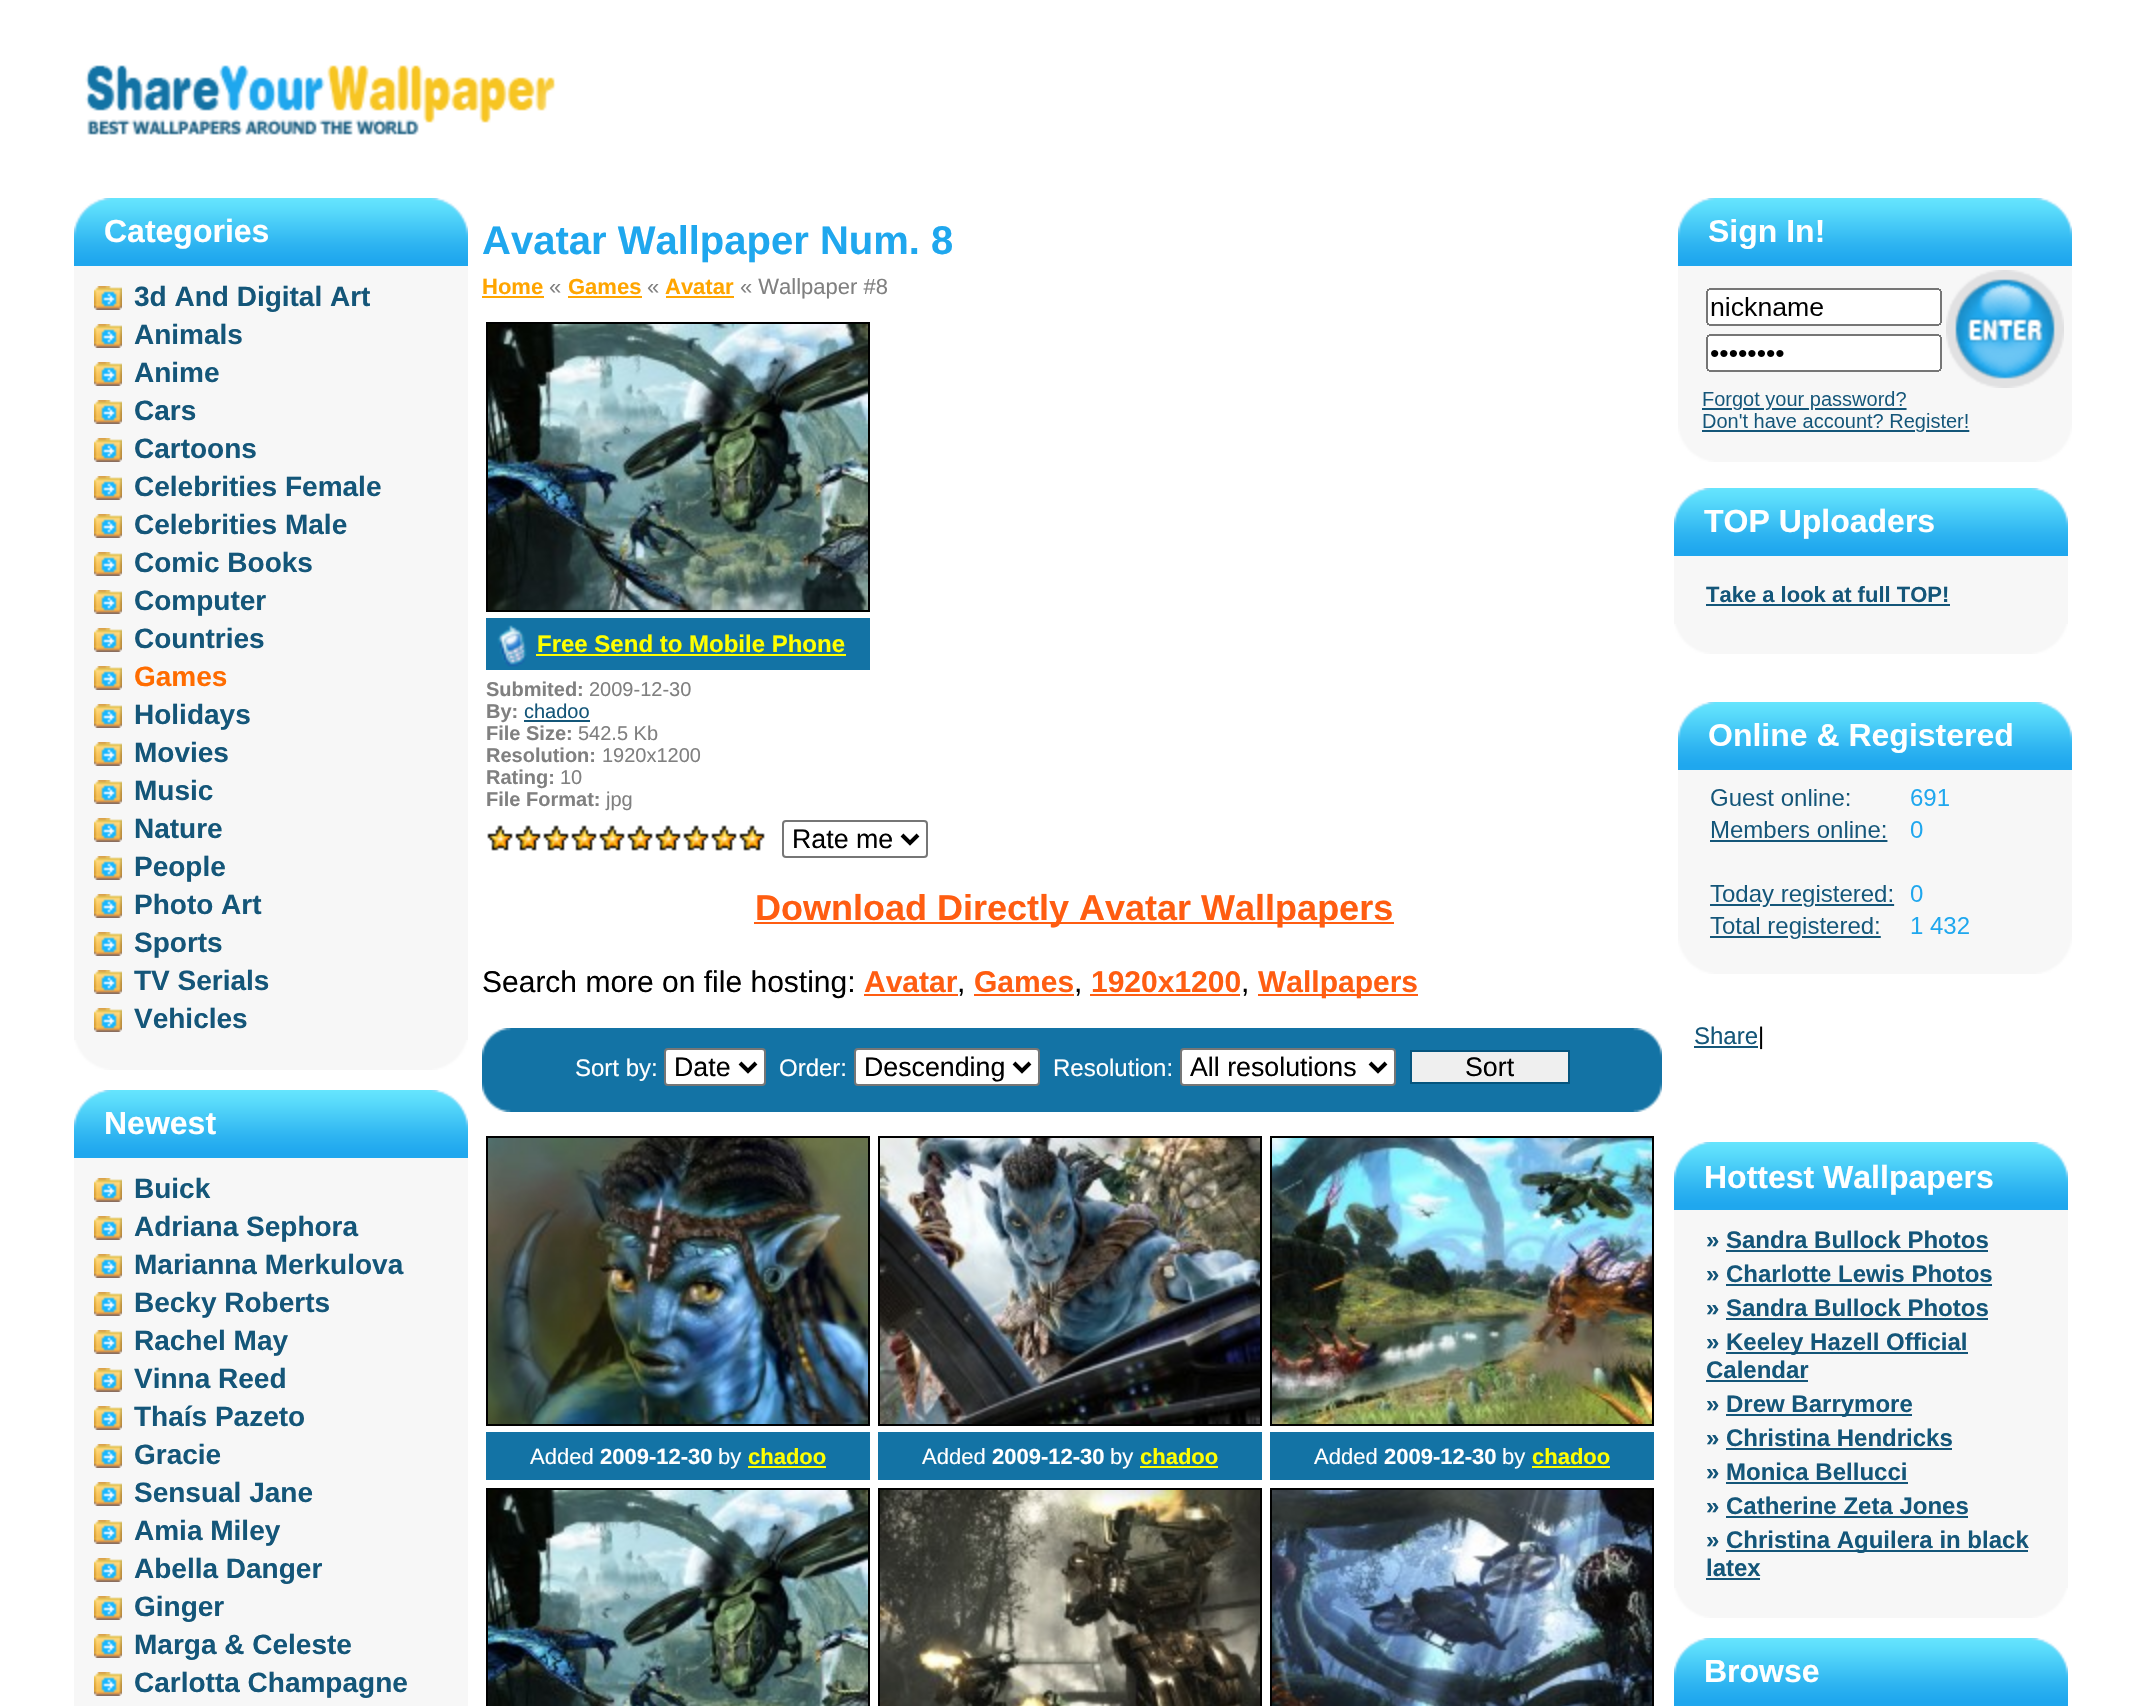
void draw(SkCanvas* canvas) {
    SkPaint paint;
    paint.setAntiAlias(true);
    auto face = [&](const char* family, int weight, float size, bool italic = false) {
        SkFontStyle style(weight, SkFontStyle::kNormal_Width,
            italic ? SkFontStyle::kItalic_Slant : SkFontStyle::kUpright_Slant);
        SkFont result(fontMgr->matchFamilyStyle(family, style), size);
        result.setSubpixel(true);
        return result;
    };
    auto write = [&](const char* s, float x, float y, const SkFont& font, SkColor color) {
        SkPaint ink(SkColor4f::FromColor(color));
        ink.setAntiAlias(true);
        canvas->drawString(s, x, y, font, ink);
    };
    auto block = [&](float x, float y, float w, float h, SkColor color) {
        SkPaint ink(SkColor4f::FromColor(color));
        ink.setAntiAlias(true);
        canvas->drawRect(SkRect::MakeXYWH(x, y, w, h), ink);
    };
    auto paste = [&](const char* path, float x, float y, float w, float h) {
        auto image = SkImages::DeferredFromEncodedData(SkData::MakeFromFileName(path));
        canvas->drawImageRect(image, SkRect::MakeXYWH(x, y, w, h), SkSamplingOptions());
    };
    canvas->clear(SK_ColorWHITE);
    paste("pic1.png", 85, 65, 471, 70);
    block(74, 266, 394, 774, SkColorSetRGB(247, 247, 247));
    paste("pic2.png", 74, 198, 394, 68);
    paste("pic3.png", 74, 1040, 394, 30);
    auto kFont1 = face("Liberation Sans", 700, 32);
    write("Categories", 104, 242, kFont1, SK_ColorWHITE);
    paste("pic4.png", 94, 286, 28, 24);
    auto kFont2 = face("Liberation Sans", 700, 28);
    write("3d And Digital Art", 134, 306, kFont2, SkColorSetRGB(20, 86, 121));
    paste("pic4.png", 94, 324, 28, 24);
    write("Animals", 134, 344, kFont2, SkColorSetRGB(20, 86, 121));
    paste("pic4.png", 94, 362, 28, 24);
    write("Anime", 134, 382, kFont2, SkColorSetRGB(20, 86, 121));
    paste("pic4.png", 94, 400, 28, 24);
    write("Cars", 134, 420, kFont2, SkColorSetRGB(20, 86, 121));
    paste("pic4.png", 94, 438, 28, 24);
    write("Cartoons", 134, 458, kFont2, SkColorSetRGB(20, 86, 121));
    paste("pic4.png", 94, 476, 28, 24);
    write("Celebrities Female", 134, 496, kFont2, SkColorSetRGB(20, 86, 121));
    paste("pic4.png", 94, 514, 28, 24);
    write("Celebrities Male", 134, 534, kFont2, SkColorSetRGB(20, 86, 121));
    paste("pic4.png", 94, 552, 28, 24);
    write("Comic Books", 134, 572, kFont2, SkColorSetRGB(20, 86, 121));
    paste("pic4.png", 94, 590, 28, 24);
    write("Computer", 134, 610, kFont2, SkColorSetRGB(20, 86, 121));
    paste("pic4.png", 94, 628, 28, 24);
    write("Countries", 134, 648, kFont2, SkColorSetRGB(20, 86, 121));
    paste("pic4.png", 94, 666, 28, 24);
    write("Games", 134, 686, kFont2, SkColorSetRGB(255, 108, 0));
    paste("pic4.png", 94, 704, 28, 24);
    write("Holidays", 134, 724, kFont2, SkColorSetRGB(20, 86, 121));
    paste("pic4.png", 94, 742, 28, 24);
    write("Movies", 134, 762, kFont2, SkColorSetRGB(20, 86, 121));
    paste("pic4.png", 94, 780, 28, 24);
    write("Music", 134, 800, kFont2, SkColorSetRGB(20, 86, 121));
    paste("pic4.png", 94, 818, 28, 24);
    write("Nature", 134, 838, kFont2, SkColorSetRGB(20, 86, 121));
    paste("pic4.png", 94, 856, 28, 24);
    write("People", 134, 876, kFont2, SkColorSetRGB(20, 86, 121));
    paste("pic4.png", 94, 894, 28, 24);
    write("Photo Art", 134, 914, kFont2, SkColorSetRGB(20, 86, 121));
    paste("pic4.png", 94, 932, 28, 24);
    write("Sports", 134, 952, kFont2, SkColorSetRGB(20, 86, 121));
    paste("pic4.png", 94, 970, 28, 24);
    write("TV Serials", 134, 990, kFont2, SkColorSetRGB(20, 86, 121));
    paste("pic4.png", 94, 1008, 28, 24);
    write("Vehicles", 134, 1028, kFont2, SkColorSetRGB(20, 86, 121));
    block(74, 1158, 394, 548, SkColorSetRGB(247, 247, 247));
    paste("pic2.png", 74, 1090, 394, 68);
    write("Newest", 104, 1134, kFont1, SK_ColorWHITE);
    paste("pic4.png", 94, 1178, 28, 24);
    write("Buick", 134, 1198, kFont2, SkColorSetRGB(20, 86, 121));
    paste("pic4.png", 94, 1216, 28, 24);
    write("Adriana Sephora", 134, 1236, kFont2, SkColorSetRGB(20, 86, 121));
    paste("pic4.png", 94, 1254, 28, 24);
    write("Marianna Merkulova", 134, 1274, kFont2, SkColorSetRGB(20, 86, 121));
    paste("pic4.png", 94, 1292, 28, 24);
    write("Becky Roberts", 134, 1312, kFont2, SkColorSetRGB(20, 86, 121));
    paste("pic4.png", 94, 1330, 28, 24);
    write("Rachel May", 134, 1350, kFont2, SkColorSetRGB(20, 86, 121));
    paste("pic4.png", 94, 1368, 28, 24);
    write("Vinna Reed", 134, 1388, kFont2, SkColorSetRGB(20, 86, 121));
    paste("pic4.png", 94, 1406, 28, 24);
    write("Thaís Pazeto", 134, 1426, kFont2, SkColorSetRGB(20, 86, 121));
    paste("pic4.png", 94, 1444, 28, 24);
    write("Gracie", 134, 1464, kFont2, SkColorSetRGB(20, 86, 121));
    paste("pic4.png", 94, 1482, 28, 24);
    write("Sensual Jane", 134, 1502, kFont2, SkColorSetRGB(20, 86, 121));
    paste("pic4.png", 94, 1520, 28, 24);
    write("Amia Miley", 134, 1540, kFont2, SkColorSetRGB(20, 86, 121));
    paste("pic4.png", 94, 1558, 28, 24);
    write("Abella Danger", 134, 1578, kFont2, SkColorSetRGB(20, 86, 121));
    paste("pic4.png", 94, 1596, 28, 24);
    write("Ginger", 134, 1616, kFont2, SkColorSetRGB(20, 86, 121));
    paste("pic4.png", 94, 1634, 28, 24);
    write("Marga & Celeste", 134, 1654, kFont2, SkColorSetRGB(20, 86, 121));
    paste("pic4.png", 94, 1672, 28, 24);
    write("Carlotta Champagne", 134, 1692, kFont2, SkColorSetRGB(20, 86, 121));
    auto kFont3 = face("Liberation Sans", 700, 40);
    write("Avatar Wallpaper Num. 8", 482, 254, kFont3, SkColorSetRGB(31, 167, 238));
    auto kFont4 = face("Liberation Sans", 700, 22);
    write("Home", 482, 294, kFont4, SkColorSetRGB(255, 165, 0));
    block(482, 296, 62, 2, SkColorSetRGB(255, 165, 0));
    auto kFont5 = face("Liberation Sans", 400, 22);
    write("«", 549, 294, kFont5, SkColorSetRGB(128, 128, 128));
    write("Games", 568, 294, kFont4, SkColorSetRGB(255, 165, 0));
    block(568, 296, 74, 2, SkColorSetRGB(255, 165, 0));
    write("«", 647, 294, kFont5, SkColorSetRGB(128, 128, 128));
    write("Avatar", 665, 294, kFont4, SkColorSetRGB(255, 165, 0));
    block(666, 296, 68, 2, SkColorSetRGB(255, 165, 0));
    write("« Wallpaper #8", 740, 294, kFont5, SkColorSetRGB(128, 128, 128));
    paint.setStyle(SkPaint::kStroke_Style);
    paint.setStrokeWidth(2);
    paint.setColor(SK_ColorBLACK);
    canvas->drawRect(SkRect::MakeXYWH(487, 323, 382, 288), paint);
    paste("pic5.png", 488, 324, 380, 286);
    block(486, 618, 384, 52, SkColorSetRGB(19, 115, 165));
    paste("pic6.png", 497, 625, 30, 42);
    auto kFont6 = face("Liberation Sans", 700, 24);
    write("Free Send to Mobile Phone", 537, 652, kFont6, SkColorSetRGB(255, 255, 0));
    block(536, 654, 310, 2, SkColorSetRGB(255, 255, 0));
    auto kFont7 = face("Liberation Sans", 700, 20);
    write("Submited:", 486, 696, kFont7, SkColorSetRGB(128, 128, 128));
    auto kFont8 = face("Liberation Sans", 400, 20);
    write("2009-12-30", 589, 696, kFont8, SkColorSetRGB(128, 128, 128));
    write("By:", 486, 718, kFont7, SkColorSetRGB(128, 128, 128));
    write("chadoo", 524, 718, kFont8, SkColorSetRGB(20, 86, 121));
    block(524, 720, 66, 2, SkColorSetRGB(20, 86, 121));
    write("File Size:", 486, 740, kFont7, SkColorSetRGB(128, 128, 128));
    write("542.5 Kb", 578, 740, kFont8, SkColorSetRGB(128, 128, 128));
    write("Resolution:", 486, 762, kFont7, SkColorSetRGB(128, 128, 128));
    write("1920x1200", 602, 762, kFont8, SkColorSetRGB(128, 128, 128));
    write("Rating:", 486, 784, kFont7, SkColorSetRGB(128, 128, 128));
    write("10", 560, 784, kFont8, SkColorSetRGB(128, 128, 128));
    write("File Format:", 486, 806, kFont7, SkColorSetRGB(128, 128, 128));
    write("jpg", 606, 806, kFont8, SkColorSetRGB(128, 128, 128));
    paste("pic7.png", 487, 825, 278, 26);
    paint.setColor(SkColorSetRGB(118, 118, 118));
    canvas->drawRoundRect(SkRect::MakeXYWH(783, 821, 144, 36), 3, 3, paint);
    paint.setStrokeWidth(4);
    paint.setColor(SK_ColorBLACK);
    canvas->drawPath(SkPathBuilder().moveTo(902, 835).lineTo(910, 843).lineTo(918, 835).detach(), paint);
    auto kFont9 = face("Liberation Sans", 400, 26.75f);
    write("Rate me", 792, 848, kFont9, SK_ColorBLACK);
    block(754, 922, 640, 2, SkColorSetRGB(255, 93, 17));
    auto kFont10 = face("Liberation Sans", 700, 36);
    write("Download Directly Avatar Wallpapers", 755, 920, kFont10, SkColorSetRGB(255, 93, 17));
    auto kFont11 = face("Liberation Sans", 400, 30);
    write("Search more on file hosting:", 482, 992, kFont11, SK_ColorBLACK);
    auto kFont12 = face("Liberation Sans", 700, 30);
    write("Avatar", 864, 992, kFont12, SkColorSetRGB(255, 93, 17));
    block(864, 994, 94, 2, SkColorSetRGB(255, 93, 17));
    write(",", 957, 992, kFont11, SK_ColorBLACK);
    write("Games", 974, 992, kFont12, SkColorSetRGB(255, 93, 17));
    block(974, 994, 100, 2, SkColorSetRGB(255, 93, 17));
    write(",", 1074, 992, kFont11, SK_ColorBLACK);
    write("1920x1200", 1091, 992, kFont12, SkColorSetRGB(255, 93, 17));
    block(1090, 994, 150, 2, SkColorSetRGB(255, 93, 17));
    write(",", 1241, 992, kFont11, SK_ColorBLACK);
    block(1258, 994, 160, 2, SkColorSetRGB(255, 93, 17));
    write("Wallpapers", 1258, 992, kFont12, SkColorSetRGB(255, 93, 17));
    paste("pic8.png", 482, 1028, 1180, 84);
    auto kFont13 = face("Liberation Sans", 400, 24);
    write("Sort by:", 575, 1076, kFont13, SK_ColorWHITE);
    paint.setStyle(SkPaint::kFill_Style);
    paint.setColor(SK_ColorWHITE);
    canvas->drawRoundRect(SkRect::MakeXYWH(665, 1049, 100, 36), 3, 3, paint);
    paint.setStyle(SkPaint::kStroke_Style);
    paint.setStrokeWidth(2);
    paint.setColor(SkColorSetRGB(118, 118, 118));
    canvas->drawRoundRect(SkRect::MakeXYWH(665, 1049, 100, 36), 3, 3, paint);
    paint.setStrokeWidth(4);
    paint.setColor(SK_ColorBLACK);
    canvas->drawPath(SkPathBuilder().moveTo(740, 1063).lineTo(748, 1071).lineTo(756, 1063).detach(), paint);
    write("Date", 674, 1076, kFont9, SK_ColorBLACK);
    write("Order:", 779, 1076, kFont13, SK_ColorWHITE);
    paint.setStyle(SkPaint::kFill_Style);
    paint.setColor(SK_ColorWHITE);
    canvas->drawRoundRect(SkRect::MakeXYWH(855, 1049, 184, 36), 3, 3, paint);
    paint.setStyle(SkPaint::kStroke_Style);
    paint.setStrokeWidth(2);
    paint.setColor(SkColorSetRGB(118, 118, 118));
    canvas->drawRoundRect(SkRect::MakeXYWH(855, 1049, 184, 36), 3, 3, paint);
    paint.setStrokeWidth(4);
    paint.setColor(SK_ColorBLACK);
    canvas->drawPath(SkPathBuilder().moveTo(1014, 1063).lineTo(1022, 1071).lineTo(1030, 1063).detach(), paint);
    write("Descending", 864, 1076, kFont9, SK_ColorBLACK);
    write("Resolution:", 1053, 1076, kFont13, SK_ColorWHITE);
    paint.setStyle(SkPaint::kFill_Style);
    paint.setColor(SK_ColorWHITE);
    canvas->drawRoundRect(SkRect::MakeXYWH(1181, 1049, 214, 36), 3, 3, paint);
    paint.setStyle(SkPaint::kStroke_Style);
    paint.setStrokeWidth(2);
    paint.setColor(SkColorSetRGB(118, 118, 118));
    canvas->drawRoundRect(SkRect::MakeXYWH(1181, 1049, 214, 36), 3, 3, paint);
    paint.setStrokeWidth(4);
    paint.setColor(SK_ColorBLACK);
    canvas->drawPath(SkPathBuilder().moveTo(1370, 1063).lineTo(1378, 1071).lineTo(1386, 1063).detach(), paint);
    write("All resolutions", 1190, 1076, kFont9, SK_ColorBLACK);
    paint.setStyle(SkPaint::kFill_Style);
    paint.setColor(SkColorSetRGB(239, 239, 239));
    canvas->drawRect(SkRect::MakeXYWH(1411, 1051, 158, 32), paint);
    paint.setStyle(SkPaint::kStroke_Style);
    paint.setStrokeWidth(2);
    paint.setColor(SkColorSetRGB(5, 84, 125));
    canvas->drawRect(SkRect::MakeXYWH(1411, 1051, 158, 32), paint);
    write("Sort", 1465, 1076, kFont9, SK_ColorBLACK);
    paint.setColor(SK_ColorBLACK);
    canvas->drawRect(SkRect::MakeXYWH(487, 1137, 382, 288), paint);
    paste("pic9.png", 488, 1138, 380, 286);
    block(486, 1432, 384, 48, SkColorSetRGB(19, 115, 165));
    write("Added", 530, 1464, kFont5, SK_ColorWHITE);
    write("2009-12-30", 600, 1464, kFont4, SK_ColorWHITE);
    write("by", 718, 1464, kFont5, SK_ColorWHITE);
    write("chadoo", 748, 1464, kFont4, SkColorSetRGB(255, 255, 0));
    block(748, 1466, 78, 2, SkColorSetRGB(255, 255, 0));
    canvas->drawRect(SkRect::MakeXYWH(879, 1137, 382, 288), paint);
    paste("pic10.png", 880, 1138, 380, 286);
    block(878, 1432, 384, 48, SkColorSetRGB(19, 115, 165));
    write("Added", 922, 1464, kFont5, SK_ColorWHITE);
    write("2009-12-30", 992, 1464, kFont4, SK_ColorWHITE);
    write("by", 1110, 1464, kFont5, SK_ColorWHITE);
    write("chadoo", 1140, 1464, kFont4, SkColorSetRGB(255, 255, 0));
    block(1140, 1466, 78, 2, SkColorSetRGB(255, 255, 0));
    canvas->drawRect(SkRect::MakeXYWH(1271, 1137, 382, 288), paint);
    paste("pic11.png", 1272, 1138, 380, 286);
    block(1270, 1432, 384, 48, SkColorSetRGB(19, 115, 165));
    write("Added", 1314, 1464, kFont5, SK_ColorWHITE);
    write("2009-12-30", 1384, 1464, kFont4, SK_ColorWHITE);
    write("by", 1502, 1464, kFont5, SK_ColorWHITE);
    write("chadoo", 1532, 1464, kFont4, SkColorSetRGB(255, 255, 0));
    block(1532, 1466, 78, 2, SkColorSetRGB(255, 255, 0));
    canvas->drawRect(SkRect::MakeXYWH(487, 1489, 382, 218), paint);
    paste("pic12.png", 488, 1490, 380, 216);
    canvas->drawRect(SkRect::MakeXYWH(879, 1489, 382, 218), paint);
    paste("pic13.png", 880, 1490, 380, 216);
    canvas->drawRect(SkRect::MakeXYWH(1271, 1489, 382, 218), paint);
    paste("pic14.png", 1272, 1490, 380, 216);
    paste("pic15.png", 1678, 198, 394, 264);
    block(1674, 556, 394, 68, SkColorSetRGB(247, 247, 247));
    paste("pic2.png", 1674, 488, 394, 68);
    paste("pic3.png", 1674, 624, 394, 30);
    write("TOP Uploaders", 1704, 532, kFont1, SK_ColorWHITE);
    write("Take a look at full TOP!", 1706, 602, kFont4, SkColorSetRGB(20, 86, 121));
    block(1706, 604, 244, 2, SkColorSetRGB(20, 86, 121));
    paste("pic16.png", 1678, 702, 394, 272);
    write("Share", 1694, 1044, kFont13, SkColorSetRGB(20, 86, 121));
    block(1694, 1046, 64, 2, SkColorSetRGB(20, 86, 121));
    write("|", 1758, 1044, kFont13, SK_ColorBLACK);
    block(1674, 1210, 394, 378, SkColorSetRGB(247, 247, 247));
    paste("pic2.png", 1674, 1142, 394, 68);
    paste("pic3.png", 1674, 1588, 394, 30);
    write("Hottest Wallpapers", 1704, 1188, kFont1, SK_ColorWHITE);
    write("» Sandra Bullock Photos", 1706, 1248, kFont6, SkColorSetRGB(20, 86, 121));
    block(1726, 1250, 262, 2, SkColorSetRGB(20, 86, 121));
    write("» Charlotte Lewis Photos", 1706, 1282, kFont6, SkColorSetRGB(20, 86, 121));
    block(1726, 1284, 266, 2, SkColorSetRGB(20, 86, 121));
    write("» Sandra Bullock Photos", 1706, 1316, kFont6, SkColorSetRGB(20, 86, 121));
    block(1726, 1318, 262, 2, SkColorSetRGB(20, 86, 121));
    write("»", 1706, 1350, kFont6, SkColorSetRGB(20, 86, 121));
    block(1726, 1352, 242, 2, SkColorSetRGB(20, 86, 121));
    write("Keeley Hazell Official", 1726, 1350, kFont6, SkColorSetRGB(20, 86, 121));
    write("Calendar", 1706, 1378, kFont6, SkColorSetRGB(20, 86, 121));
    block(1706, 1380, 102, 2, SkColorSetRGB(20, 86, 121));
    write("»", 1706, 1412, kFont6, SkColorSetRGB(20, 86, 121));
    block(1726, 1414, 186, 2, SkColorSetRGB(20, 86, 121));
    write("Drew Barrymore", 1726, 1412, kFont6, SkColorSetRGB(20, 86, 121));
    write("» Christina Hendricks", 1706, 1446, kFont6, SkColorSetRGB(20, 86, 121));
    block(1726, 1448, 226, 2, SkColorSetRGB(20, 86, 121));
    write("» Monica Bellucci", 1706, 1480, kFont6, SkColorSetRGB(20, 86, 121));
    block(1726, 1482, 182, 2, SkColorSetRGB(20, 86, 121));
    write("» Catherine Zeta Jones", 1706, 1514, kFont6, SkColorSetRGB(20, 86, 121));
    block(1726, 1516, 242, 2, SkColorSetRGB(20, 86, 121));
    write("»", 1706, 1548, kFont6, SkColorSetRGB(20, 86, 121));
    block(1726, 1550, 302, 2, SkColorSetRGB(20, 86, 121));
    write("Christina Aguilera in black", 1726, 1548, kFont6, SkColorSetRGB(20, 86, 121));
    write("latex", 1706, 1576, kFont6, SkColorSetRGB(20, 86, 121));
    block(1706, 1578, 54, 2, SkColorSetRGB(20, 86, 121));
    paste("pic2.png", 1674, 1638, 394, 68);
    write("Browse", 1704, 1682, kFont1, SK_ColorWHITE);
}
